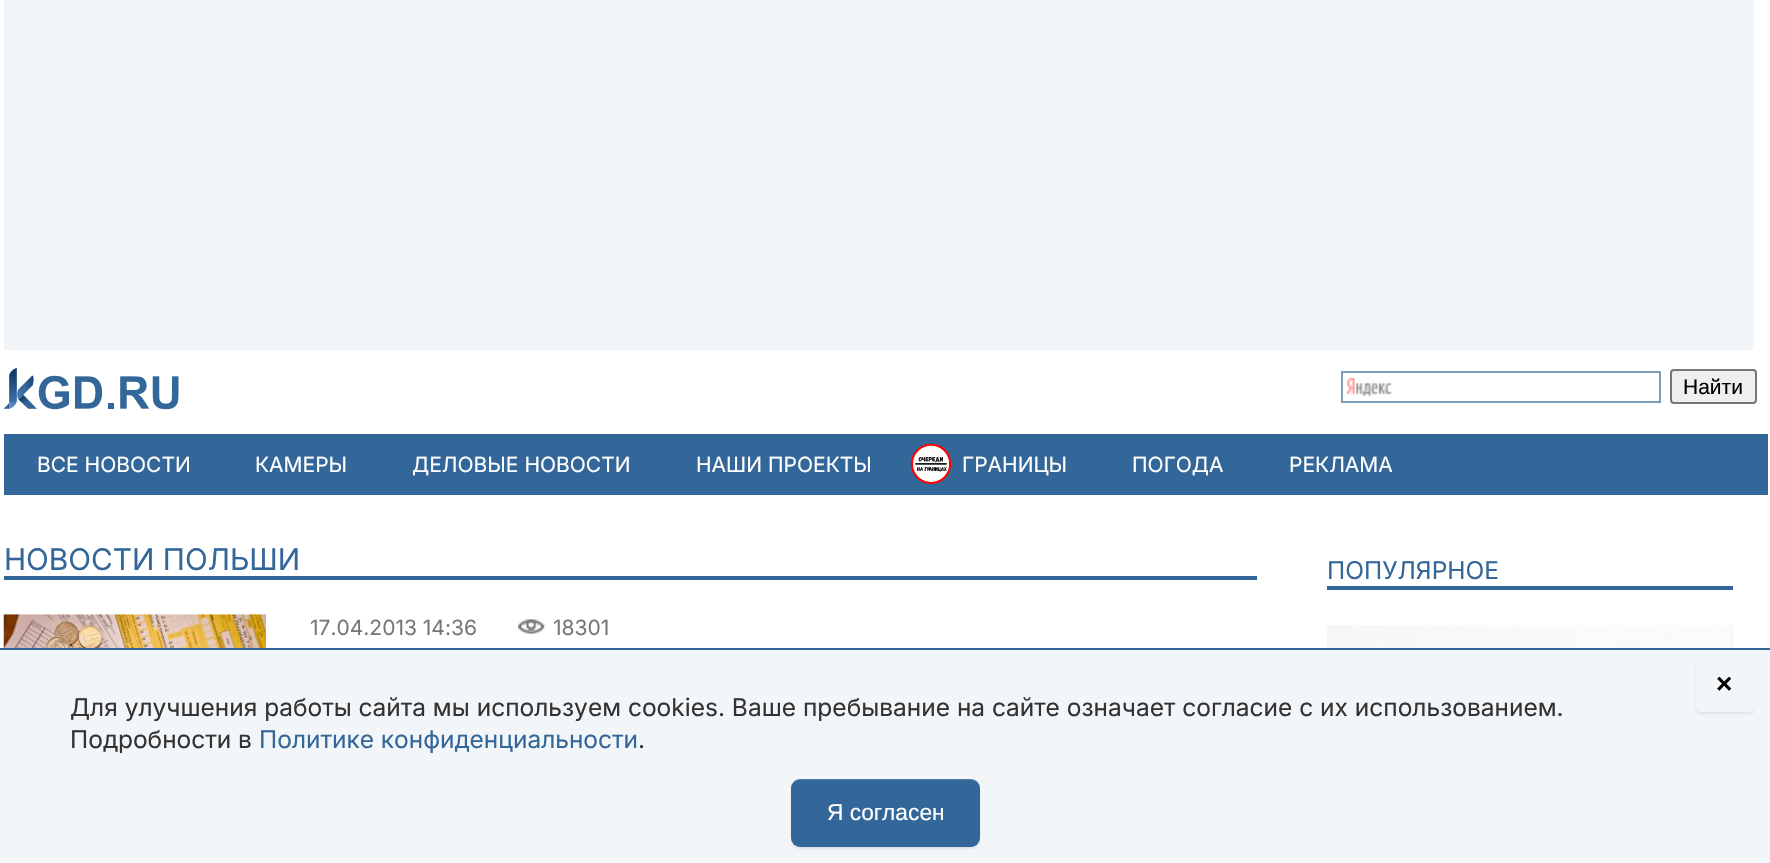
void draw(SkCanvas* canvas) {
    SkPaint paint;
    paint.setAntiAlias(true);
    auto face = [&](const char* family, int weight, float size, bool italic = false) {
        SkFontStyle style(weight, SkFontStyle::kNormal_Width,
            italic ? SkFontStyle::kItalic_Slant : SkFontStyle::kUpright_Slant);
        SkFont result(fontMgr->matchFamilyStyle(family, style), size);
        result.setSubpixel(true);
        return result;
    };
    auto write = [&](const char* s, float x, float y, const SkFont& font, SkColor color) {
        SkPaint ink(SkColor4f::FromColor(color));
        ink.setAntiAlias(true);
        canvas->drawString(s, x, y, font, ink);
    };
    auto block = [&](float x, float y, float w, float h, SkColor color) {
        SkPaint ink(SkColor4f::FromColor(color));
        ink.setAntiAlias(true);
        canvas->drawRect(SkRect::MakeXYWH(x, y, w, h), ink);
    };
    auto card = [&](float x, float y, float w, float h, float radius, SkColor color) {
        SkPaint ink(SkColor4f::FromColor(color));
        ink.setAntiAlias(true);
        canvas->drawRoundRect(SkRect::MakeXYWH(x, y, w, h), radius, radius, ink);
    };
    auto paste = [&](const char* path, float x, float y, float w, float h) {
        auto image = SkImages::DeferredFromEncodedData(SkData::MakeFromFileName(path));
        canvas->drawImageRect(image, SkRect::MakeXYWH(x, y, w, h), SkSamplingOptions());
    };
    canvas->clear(SK_ColorWHITE);
    block(4, 0, 1750, 350, SkColorSetRGB(243, 246, 249));
    paste("pic1.png", 4, 368, 175, 42);
    paste("pic2.png", 1346, 378, 46, 19);
    paint.setStyle(SkPaint::kStroke_Style);
    paint.setStrokeWidth(2);
    paint.setColor(SkColorSetRGB(127, 157, 185));
    canvas->drawRect(SkRect::MakeXYWH(1342, 372, 318, 30), paint);
    paint.setStyle(SkPaint::kFill_Style);
    paint.setColor(SkColorSetRGB(239, 239, 239));
    canvas->drawRoundRect(SkRect::MakeXYWH(1671, 370, 85, 33), 3, 3, paint);
    paint.setStyle(SkPaint::kStroke_Style);
    paint.setColor(SkColorSetRGB(118, 118, 118));
    canvas->drawRoundRect(SkRect::MakeXYWH(1671, 370, 85, 33), 3, 3, paint);
    auto kFont1 = face("Liberation Sans", 400, 21);
    write("Найти", 1683, 394, kFont1, SK_ColorBLACK);
    block(4, 434, 1764, 61, SkColorSetRGB(51, 102, 153));
    auto kFont2 = face("Inter", 400, 21);
    write("ВСЕ НОВОСТИ", 37, 472, kFont2, SK_ColorWHITE);
    write("КАМЕРЫ", 255, 472, kFont2, SK_ColorWHITE);
    write("ДЕЛОВЫЕ НОВОСТИ", 412, 472, kFont2, SK_ColorWHITE);
    write("НАШИ ПРОЕКТЫ", 696, 472, kFont2, SK_ColorWHITE);
    paste("pic3.png", 910, 443, 42, 41);
    write("ГРАНИЦЫ", 962, 472, kFont2, SK_ColorWHITE);
    write("ПОГОДА", 1132, 472, kFont2, SK_ColorWHITE);
    write("РЕКЛАМА", 1289, 472, kFont2, SK_ColorWHITE);
    block(4, 576, 1253, 4, SkColorSetRGB(51, 102, 153));
    auto kFont3 = face("Inter", 400, 29.75f);
    write("НОВОСТИ ПОЛЬШИ", 4, 570, kFont3, SkColorSetRGB(51, 102, 153));
    paste("pic4.png", 3, 614, 263, 34);
    write("17.04.2013 14:36", 310, 635, kFont2, SkColorSetRGB(119, 119, 119));
    paste("pic5.png", 518, 619, 27, 15);
    write("18301", 553, 635, kFont2, SkColorSetRGB(119, 119, 119));
    block(1327, 586, 406, 4, SkColorSetRGB(51, 102, 153));
    auto kFont4 = face("Inter", 400, 24.5f);
    write("ПОПУЛЯРНОЕ", 1327, 579, kFont4, SkColorSetRGB(51, 102, 153));
    block(1732, 625, 1, 23, SkColorSetRGB(227, 230, 233));
    paste("pic6.png", 1326, 625, 407, 23);
    block(0, 650, 1770, 213, SkColorSetRGB(243, 246, 249));
    block(0, 648, 1770, 2, SkColorSetRGB(51, 102, 153));
    canvas->save();
    canvas->clipPath(SkPathBuilder(SkPathFillType::kEvenOdd).moveTo(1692, 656).lineTo(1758, 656).lineTo(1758, 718).lineTo(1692, 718).close().moveTo(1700, 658).lineTo(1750, 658).cubicTo(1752, 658, 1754, 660, 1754, 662).lineTo(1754, 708).cubicTo(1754, 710, 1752, 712, 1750, 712).lineTo(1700, 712).cubicTo(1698, 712, 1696, 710, 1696, 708).lineTo(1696, 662).cubicTo(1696, 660, 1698, 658, 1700, 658).close().detach(), true);
    paint.setStyle(SkPaint::kFill_Style);
    paint.setColor(SkColorSetARGB(18, 0, 0, 0));
    paint.setMaskFilter(SkMaskFilter::MakeBlur(kNormal_SkBlurStyle, 1));
    canvas->drawRoundRect(SkRect::MakeXYWH(1696, 660, 58, 54), 4, 4, paint);
    paint.setMaskFilter(nullptr);
    canvas->restore();
    auto kFont5 = face("Liberation Sans", 700, 28);
    write("×", 1716, 693, kFont5, SK_ColorBLACK);
    write("Для улучшения работы сайта мы используем cookies. Ваше пребывание на сайте означает согласие с их использованием.", 70, 716, kFont4, SkColorSetRGB(51, 51, 51));
    write("Подробности в", 70, 748, kFont4, SkColorSetRGB(51, 51, 51));
    write("Политике конфиденциальности", 259, 748, kFont4, SkColorSetRGB(51, 102, 153));
    write(".", 638, 748, kFont4, SkColorSetRGB(51, 51, 51));
    paint.setMaskFilter(SkMaskFilter::MakeBlur(kNormal_SkBlurStyle, 1));
    canvas->drawRoundRect(SkRect::MakeXYWH(791, 781, 189, 68), 9, 9, paint);
    paint.setMaskFilter(nullptr);
    card(791, 779, 189, 68, 9, SkColorSetRGB(51, 102, 153));
    paint.setColor(SkColorSetARGB(38, 255, 255, 255));
    canvas->drawPath(SkPathBuilder().moveTo(800, 780).lineTo(971, 780).cubicTo(976, 780, 980, 784, 980, 789).lineTo(980, 788).cubicTo(980, 783, 976, 779, 971, 779).lineTo(800, 779).cubicTo(795, 779, 791, 783, 791, 788).lineTo(791, 789).cubicTo(791, 784, 795, 780, 800, 780).close().detach(), paint);
    auto kFont6 = face("Liberation Sans", 400, 22.75f);
    write("Я согласен", 827, 820, kFont6, SK_ColorWHITE);
}
